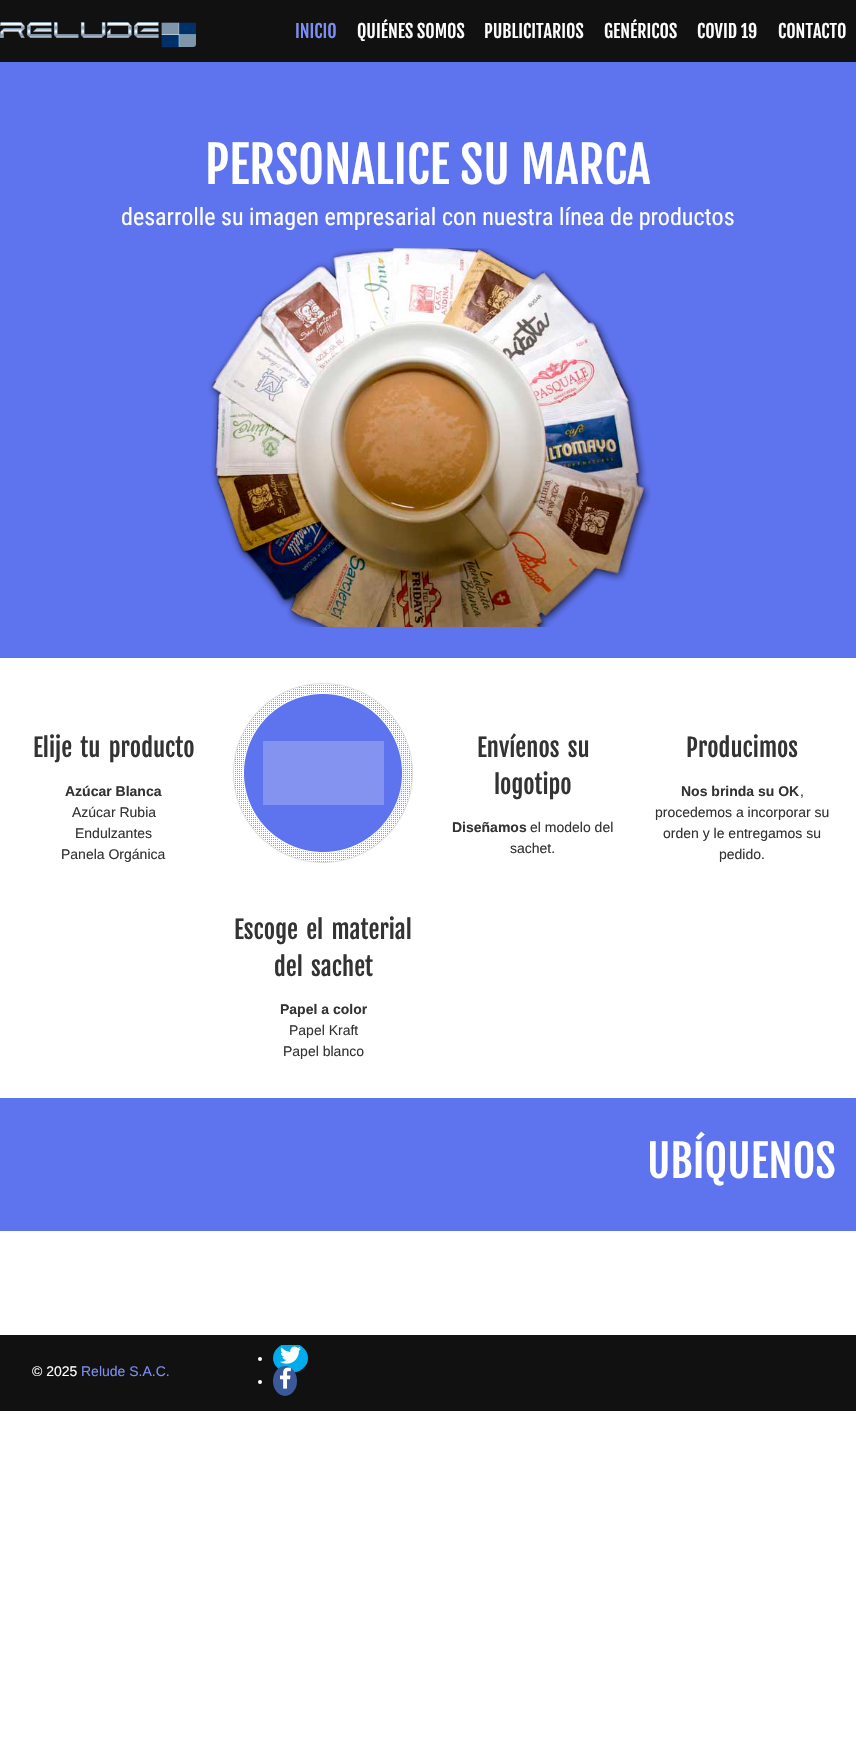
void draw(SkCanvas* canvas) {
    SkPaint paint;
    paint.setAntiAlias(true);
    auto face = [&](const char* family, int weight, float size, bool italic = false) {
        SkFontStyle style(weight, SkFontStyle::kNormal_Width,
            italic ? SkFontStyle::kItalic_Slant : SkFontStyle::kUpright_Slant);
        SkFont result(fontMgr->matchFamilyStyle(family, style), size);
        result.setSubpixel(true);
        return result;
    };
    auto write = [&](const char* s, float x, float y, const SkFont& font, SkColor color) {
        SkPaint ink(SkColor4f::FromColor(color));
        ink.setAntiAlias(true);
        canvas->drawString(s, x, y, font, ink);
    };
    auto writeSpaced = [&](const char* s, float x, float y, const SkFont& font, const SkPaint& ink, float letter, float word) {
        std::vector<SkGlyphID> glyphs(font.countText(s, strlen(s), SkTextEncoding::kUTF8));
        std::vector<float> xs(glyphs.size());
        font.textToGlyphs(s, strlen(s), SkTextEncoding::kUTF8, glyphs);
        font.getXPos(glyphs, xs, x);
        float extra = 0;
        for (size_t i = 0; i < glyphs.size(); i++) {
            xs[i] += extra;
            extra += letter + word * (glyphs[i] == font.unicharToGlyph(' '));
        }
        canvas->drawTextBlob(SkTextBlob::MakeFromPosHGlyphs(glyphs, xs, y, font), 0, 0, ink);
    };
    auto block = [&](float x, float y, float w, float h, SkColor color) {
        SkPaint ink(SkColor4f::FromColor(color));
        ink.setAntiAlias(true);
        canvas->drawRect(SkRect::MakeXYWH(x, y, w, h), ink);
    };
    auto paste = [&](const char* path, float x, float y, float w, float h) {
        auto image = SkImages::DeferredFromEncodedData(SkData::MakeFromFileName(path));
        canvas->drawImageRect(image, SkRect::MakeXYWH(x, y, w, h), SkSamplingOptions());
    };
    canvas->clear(SK_ColorWHITE);
    block(0, 0, 856, 62, SkColorSetRGB(17, 17, 17));
    paste("pic1.png", 0, 22, 196, 25);
    auto kFont1 = face("Fjalla One", 400, 18);
    write("INICIO", 295, 38, kFont1, SkColorSetRGB(125, 142, 241));
    write("QUIÉNES SOMOS", 357, 38, kFont1, SK_ColorWHITE);
    write("PUBLICITARIOS", 484, 38, kFont1, SK_ColorWHITE);
    write("GENÉRICOS", 604, 38, kFont1, SK_ColorWHITE);
    write("COVID 19", 697, 38, kFont1, SK_ColorWHITE);
    write("CONTACTO", 778, 38, kFont1, SK_ColorWHITE);
    block(0, 62, 856, 596, SkColorSetRGB(94, 115, 238));
    auto kFont2 = face("Fjalla One", 400, 50);
    write("PERSONALICE SU MARCA", 205, 184, kFont2, SK_ColorWHITE);
    auto kFont3 = face("Roboto Condensed", 400, 24);
    write("desarrolle su imagen empresarial con nuestra línea de productos", 121, 225, kFont3, SK_ColorWHITE);
    paste("pic2.png", 208, 248, 443, 379);
    auto kFont4 = face("Fjalla One", 400, 24.5f);
    paint.setColor(SkColorSetRGB(51, 51, 51));
    writeSpaced("Elije tu producto", 33, 757, kFont4, paint, 0, 3);
    auto kFont5 = face("Liberation Sans", 700, 14);
    write("Azúcar Blanca", 65, 796, kFont5, SkColorSetRGB(51, 51, 51));
    auto kFont6 = face("Liberation Sans", 400, 14);
    write("Azúcar Rubia", 72, 817, kFont6, SkColorSetRGB(51, 51, 51));
    write("Endulzantes", 75, 838, kFont6, SkColorSetRGB(51, 51, 51));
    write("Panela Orgánica", 61, 859, kFont6, SkColorSetRGB(51, 51, 51));
    writeSpaced("Envíenos su", 477, 757, kFont4, paint, 0, 3);
    write("logotipo", 494, 794, kFont4, SkColorSetRGB(51, 51, 51));
    write("Diseñamos", 452, 832, kFont5, SkColorSetRGB(51, 51, 51));
    write("el modelo del", 530, 832, kFont6, SkColorSetRGB(51, 51, 51));
    write("sachet.", 510, 853, kFont6, SkColorSetRGB(51, 51, 51));
    write("Producimos", 686, 757, kFont4, SkColorSetRGB(51, 51, 51));
    write("Nos brinda su OK", 681, 796, kFont5, SkColorSetRGB(51, 51, 51));
    write(",", 800, 796, kFont6, SkColorSetRGB(51, 51, 51));
    write("procedemos a incorporar su", 655, 817, kFont6, SkColorSetRGB(51, 51, 51));
    write("orden y le entregamos su", 663, 838, kFont6, SkColorSetRGB(51, 51, 51));
    write("pedido.", 719, 859, kFont6, SkColorSetRGB(51, 51, 51));
    block(244, 694, 169, 160, SkColorSetRGB(94, 115, 238));
    paste("pic3.png", 233, 682, 180, 182);
    writeSpaced("Escoge el material", 234, 939, kFont4, paint, 0, 3);
    writeSpaced("del sachet", 274, 976, kFont4, paint, 0, 3);
    write("Papel a color", 280, 1014, kFont5, SkColorSetRGB(51, 51, 51));
    write("Papel Kraft", 289, 1035, kFont6, SkColorSetRGB(51, 51, 51));
    write("Papel blanco", 283, 1056, kFont6, SkColorSetRGB(51, 51, 51));
    block(0, 1098, 856, 133, SkColorSetRGB(94, 115, 238));
    auto kFont7 = face("Fjalla One", 400, 44);
    write("UBÍQUENOS", 647, 1178, kFont7, SK_ColorWHITE);
    block(0, 1335, 856, 76, SkColorSetRGB(17, 17, 17));
    write("© 2025", 32, 1376, kFont6, SK_ColorWHITE);
    write("Relude S.A.C.", 81, 1376, kFont6, SkColorSetRGB(125, 142, 241));
    paint.setColor(SK_ColorWHITE);
    canvas->drawCircle(260, 1359, 2, paint);
    canvas->save();
    canvas->clipRect(SkRect::MakeXYWH(230, 1345, 606, 56));
    paint.setColor(SkColorSetRGB(0, 172, 237));
    canvas->drawOval(SkRect::MakeXYWH(273, 1343, 35, 30), paint);
    canvas->restore();
    paste("pic4.png", 280, 1346, 21, 18);
    paint.setColor(SK_ColorWHITE);
    canvas->drawCircle(260, 1382, 2, paint);
    paint.setColor(SkColorSetRGB(59, 89, 152));
    canvas->drawOval(SkRect::MakeXYWH(273, 1366, 24, 30), paint);
    paste("pic5.png", 280, 1367, 11, 22);
}
